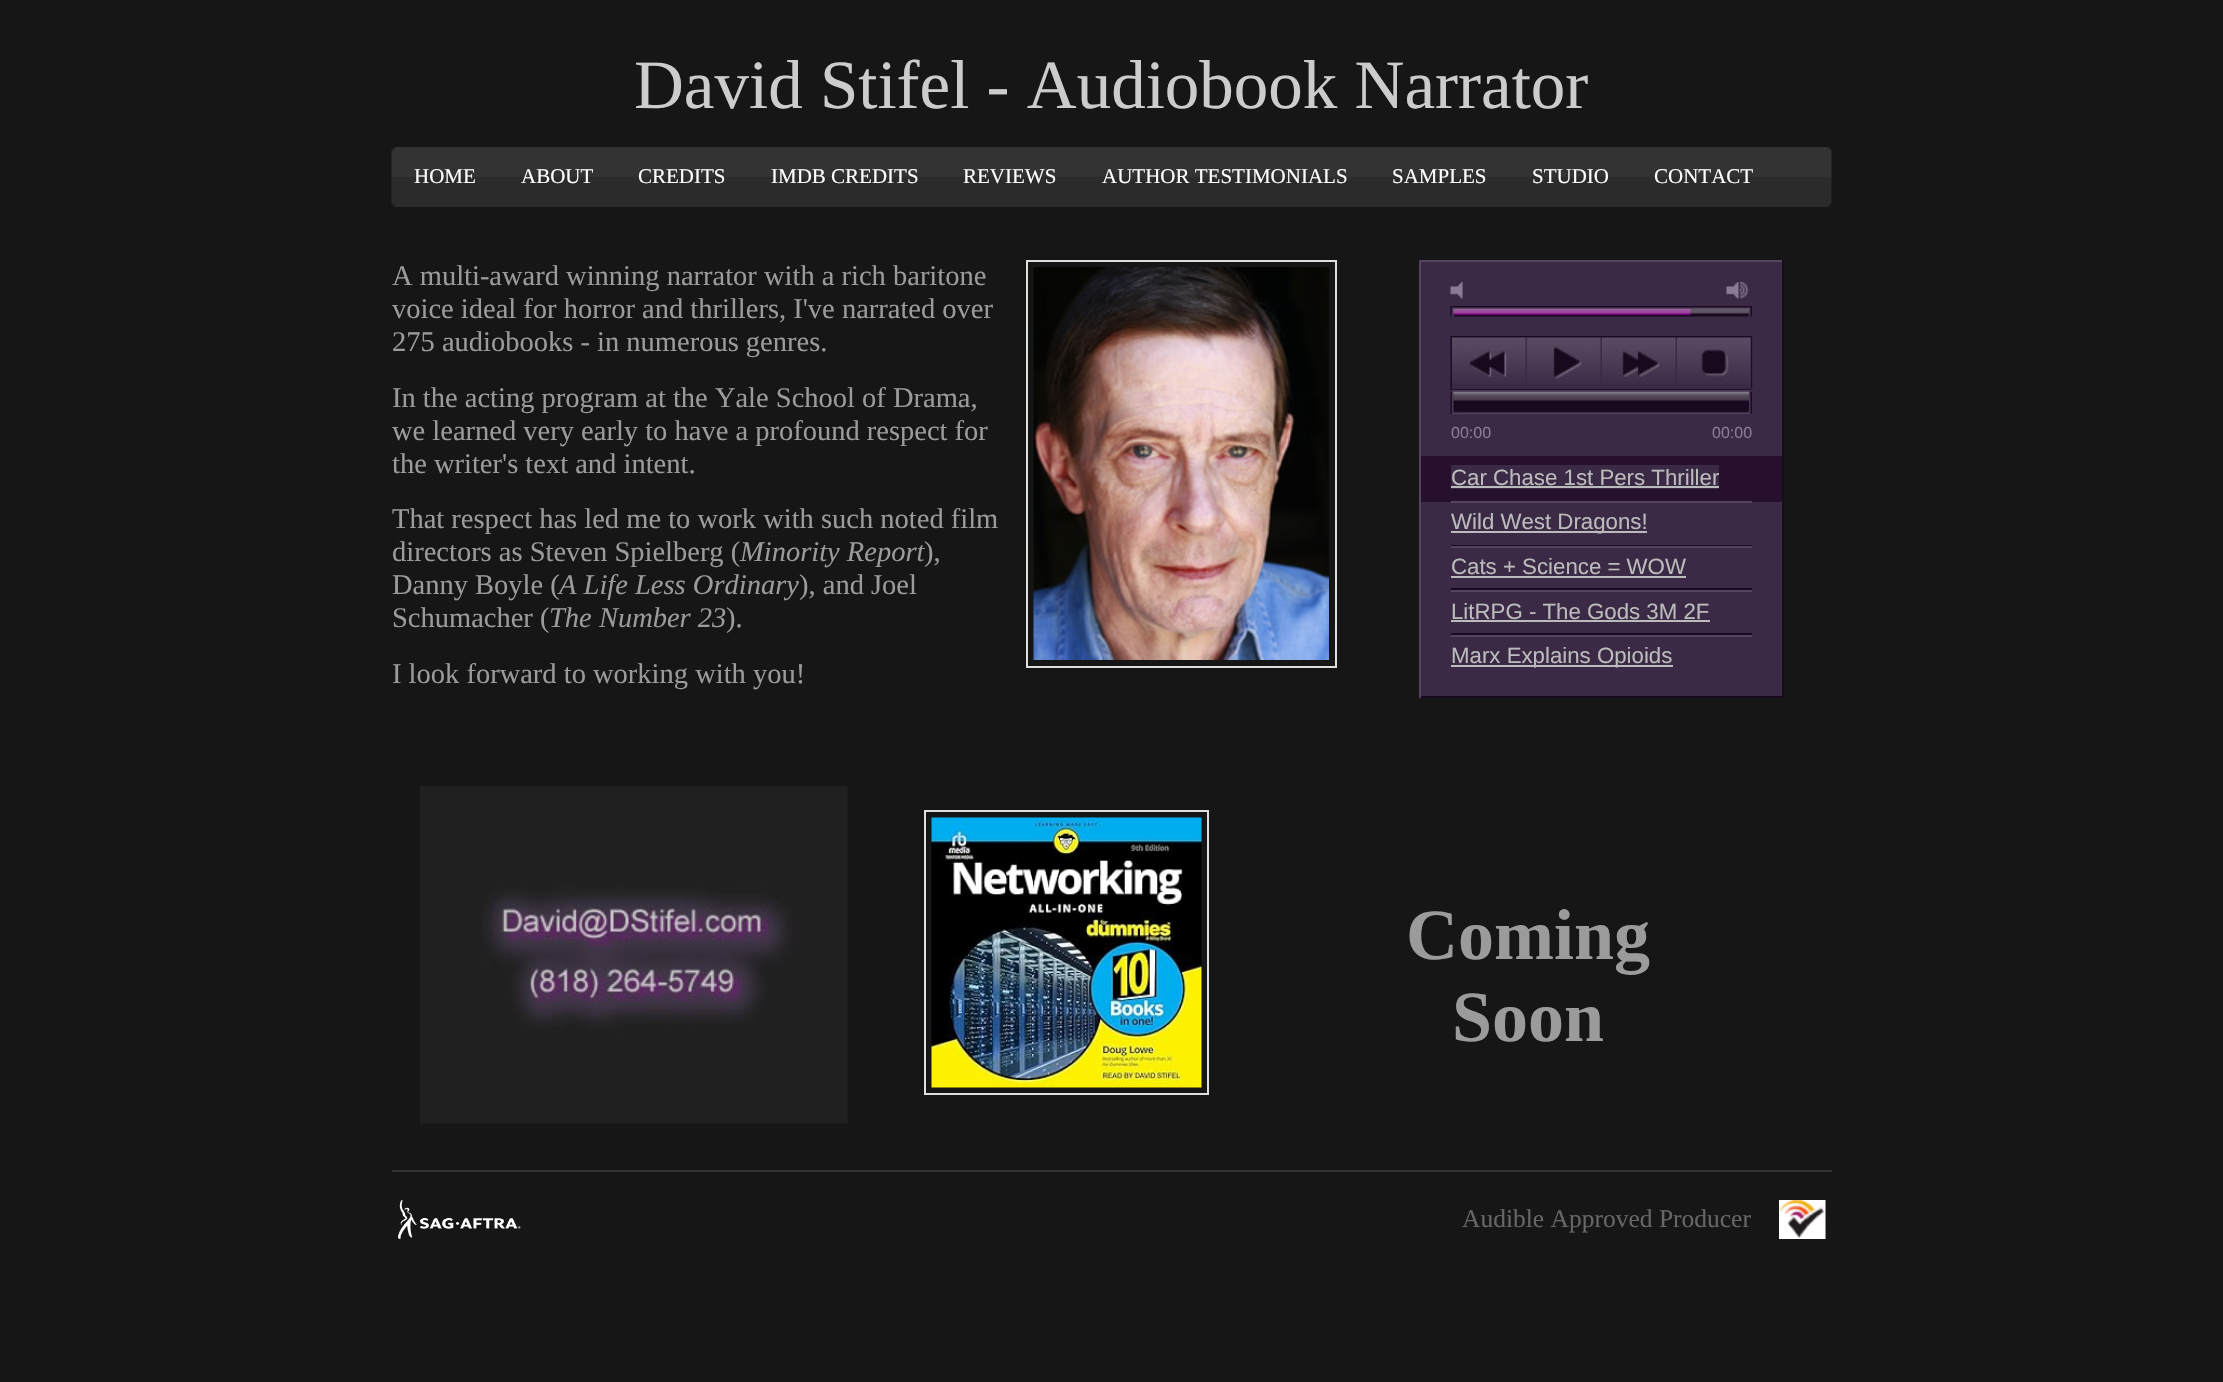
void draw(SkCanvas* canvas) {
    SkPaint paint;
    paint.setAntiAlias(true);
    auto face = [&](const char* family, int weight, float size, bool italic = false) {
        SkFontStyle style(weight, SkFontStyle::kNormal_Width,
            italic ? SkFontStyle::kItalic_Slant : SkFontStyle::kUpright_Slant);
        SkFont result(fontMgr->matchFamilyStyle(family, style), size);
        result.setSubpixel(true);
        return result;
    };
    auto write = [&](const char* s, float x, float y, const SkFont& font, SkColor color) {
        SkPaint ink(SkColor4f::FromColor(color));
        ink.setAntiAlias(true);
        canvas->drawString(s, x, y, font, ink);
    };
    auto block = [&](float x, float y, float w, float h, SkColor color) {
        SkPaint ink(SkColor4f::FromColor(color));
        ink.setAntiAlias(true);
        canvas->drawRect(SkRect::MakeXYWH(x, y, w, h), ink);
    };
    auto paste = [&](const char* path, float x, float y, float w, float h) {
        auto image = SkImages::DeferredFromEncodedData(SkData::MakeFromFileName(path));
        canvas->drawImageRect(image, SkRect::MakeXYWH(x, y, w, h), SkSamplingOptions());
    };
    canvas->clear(SkColorSetRGB(22, 22, 22));
    auto kFont1 = face("Liberation Serif", 400, 69);
    write("David Stifel - Audiobook Narrator", 634, 108, kFont1, SkColorSetRGB(204, 204, 204));
    paste("pic1.png", 391, 147, 1441, 60);
    auto kFont2 = face("Liberation Serif", 400, 21);
    write("HOME", 414, 183, kFont2, SK_ColorWHITE);
    write("ABOUT", 521, 183, kFont2, SK_ColorWHITE);
    write("CREDITS", 638, 183, kFont2, SK_ColorWHITE);
    write("IMDB CREDITS", 771, 183, kFont2, SK_ColorWHITE);
    write("REVIEWS", 963, 183, kFont2, SK_ColorWHITE);
    write("AUTHOR TESTIMONIALS", 1102, 183, kFont2, SK_ColorWHITE);
    write("SAMPLES", 1392, 183, kFont2, SK_ColorWHITE);
    write("STUDIO", 1532, 183, kFont2, SK_ColorWHITE);
    write("CONTACT", 1654, 183, kFont2, SK_ColorWHITE);
    auto kFont3 = face("Liberation Serif", 400, 28.5f);
    write("A multi-award winning narrator with a rich baritone", 392, 285, kFont3, SkColorSetRGB(155, 155, 155));
    write("voice ideal for horror and thrillers, I've narrated over", 392, 318, kFont3, SkColorSetRGB(155, 155, 155));
    write("275 audiobooks - in numerous genres.", 392, 351, kFont3, SkColorSetRGB(155, 155, 155));
    paint.setStyle(SkPaint::kStroke_Style);
    paint.setStrokeWidth(2);
    paint.setColor(SkColorSetRGB(223, 223, 223));
    canvas->drawRect(SkRect::MakeXYWH(1027, 261, 309, 406), paint);
    paste("pic2.png", 1033, 267, 296, 393);
    write("In the acting program at the Yale School of Drama,", 392, 407, kFont3, SkColorSetRGB(155, 155, 155));
    write("we learned very early to have a profound respect for", 392, 440, kFont3, SkColorSetRGB(155, 155, 155));
    write("the writer's text and intent.", 392, 473, kFont3, SkColorSetRGB(155, 155, 155));
    write("That respect has led me to work with such noted film", 392, 528, kFont3, SkColorSetRGB(155, 155, 155));
    write("directors as Steven Spielberg (", 392, 561, kFont3, SkColorSetRGB(155, 155, 155));
    auto kFont4 = face("Liberation Serif", 400, 28.5f, true);
    write("Minority Report", 740, 561, kFont4, SkColorSetRGB(155, 155, 155));
    write("),", 924, 561, kFont3, SkColorSetRGB(155, 155, 155));
    write("Danny Boyle (", 392, 594, kFont3, SkColorSetRGB(155, 155, 155));
    write("A Life Less Ordinary", 559, 594, kFont4, SkColorSetRGB(155, 155, 155));
    write("), and Joel", 799, 594, kFont3, SkColorSetRGB(155, 155, 155));
    write("Schumacher (", 392, 627, kFont3, SkColorSetRGB(155, 155, 155));
    write("The Number 23", 549, 627, kFont4, SkColorSetRGB(155, 155, 155));
    write(").", 726, 627, kFont3, SkColorSetRGB(155, 155, 155));
    write("I look forward to working with you!", 392, 683, kFont3, SkColorSetRGB(155, 155, 155));
    block(1421, 262, 361, 434, SkColorSetRGB(58, 42, 69));
    block(1419, 260, 365, 2, SkColorSetRGB(85, 68, 97));
    block(1782, 260, 2, 438, SkColorSetRGB(24, 10, 31));
    block(1419, 696, 365, 2, SkColorSetRGB(24, 10, 31));
    block(1419, 260, 2, 438, SkColorSetRGB(85, 68, 97));
    paste("pic3.png", 1450, 336, 303, 56);
    paste("pic4.png", 1450, 282, 13, 17);
    paste("pic5.png", 1726, 282, 23, 17);
    block(1452, 338, 74, 51, SkColorSetRGB(58, 42, 69));
    paste("pic6.png", 1452, 337, 74, 47);
    block(1527, 388, 74, 1, SkColorSetRGB(58, 42, 69));
    paste("pic7.png", 1527, 337, 74, 47);
    block(1602, 388, 74, 1, SkColorSetRGB(58, 42, 69));
    paste("pic8.png", 1602, 337, 74, 47);
    block(1677, 338, 74, 51, SkColorSetRGB(58, 42, 69));
    paste("pic9.png", 1677, 337, 74, 47);
    paste("pic10.png", 1450, 306, 302, 11);
    paste("pic11.png", 1453, 309, 238, 6);
    paste("pic12.png", 1450, 391, 302, 23);
    paste("pic13.png", 1453, 391, 296, 20);
    auto kFont5 = face("Liberation Sans", 400, 16);
    write("00:00", 1451, 438, kFont5, SkColorSetRGB(140, 122, 153));
    write("00:00", 1712, 438, kFont5, SkColorSetRGB(140, 122, 153));
    block(1421, 456, 361, 46, SkColorSetRGB(38, 16, 46));
    block(1451, 465, 268, 24, SkColorSetRGB(58, 42, 69));
    auto kFont6 = face("Liberation Sans", 400, 22.25f);
    write("Car Chase 1st Pers Thriller", 1451, 485, kFont6, SkColorSetRGB(187, 187, 187));
    block(1451, 486, 268, 2, SkColorSetRGB(187, 187, 187));
    block(1451, 501, 301, 2, SkColorSetRGB(85, 68, 97));
    block(1451, 545, 301, 1, SkColorSetRGB(24, 10, 31));
    block(1451, 531, 196, 2, SkColorSetRGB(187, 187, 187));
    write("Wild West Dragons!", 1451, 529, kFont6, SkColorSetRGB(187, 187, 187));
    block(1451, 546, 301, 2, SkColorSetRGB(85, 68, 97));
    block(1451, 588, 301, 2, SkColorSetRGB(24, 10, 31));
    write("Cats + Science = WOW", 1451, 574, kFont6, SkColorSetRGB(187, 187, 187));
    block(1451, 576, 235, 2, SkColorSetRGB(187, 187, 187));
    block(1451, 590, 301, 2, SkColorSetRGB(85, 68, 97));
    block(1451, 633, 301, 2, SkColorSetRGB(24, 10, 31));
    write("LitRPG - The Gods 3M 2F", 1451, 619, kFont6, SkColorSetRGB(187, 187, 187));
    block(1451, 620, 259, 2, SkColorSetRGB(187, 187, 187));
    block(1451, 635, 301, 2, SkColorSetRGB(85, 68, 97));
    block(1451, 665, 222, 2, SkColorSetRGB(187, 187, 187));
    write("Marx Explains Opioids", 1451, 663, kFont6, SkColorSetRGB(187, 187, 187));
    paste("pic14.png", 420, 786, 428, 338);
    canvas->drawRect(SkRect::MakeXYWH(925, 811, 283, 283), paint);
    paste("pic15.png", 931, 817, 271, 271);
    auto kFont7 = face("Liberation Serif", 700, 72);
    write("Coming", 1406, 959, kFont7, SkColorSetRGB(155, 155, 155));
    write("Soon", 1452, 1041, kFont7, SkColorSetRGB(155, 155, 155));
    block(392, 1170, 1440, 2, SkColorSetRGB(51, 51, 51));
    paste("pic16.png", 398, 1200, 123, 39);
    auto kFont8 = face("Liberation Serif", 400, 25.5f);
    write("Audible Approved Producer", 1462, 1227, kFont8, SkColorSetRGB(102, 102, 102));
    paste("pic17.png", 1779, 1200, 47, 39);
}
